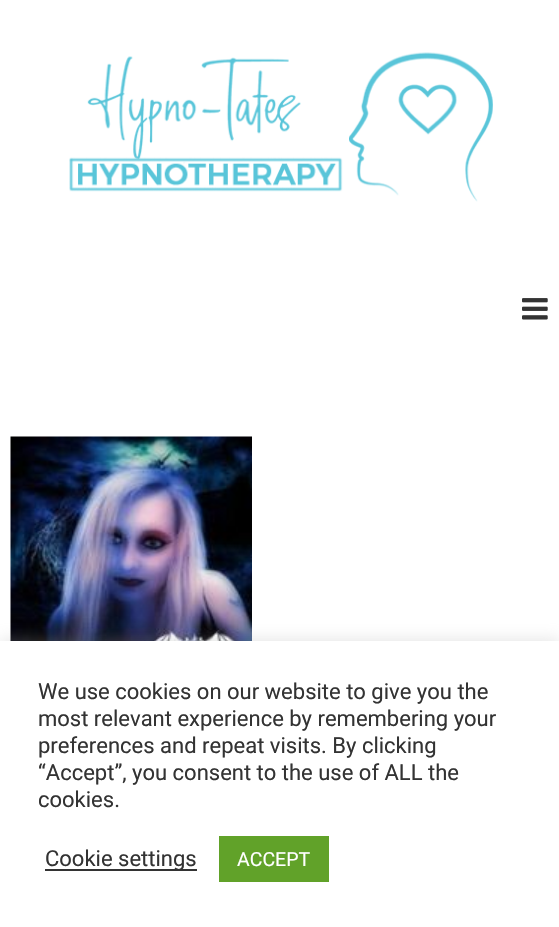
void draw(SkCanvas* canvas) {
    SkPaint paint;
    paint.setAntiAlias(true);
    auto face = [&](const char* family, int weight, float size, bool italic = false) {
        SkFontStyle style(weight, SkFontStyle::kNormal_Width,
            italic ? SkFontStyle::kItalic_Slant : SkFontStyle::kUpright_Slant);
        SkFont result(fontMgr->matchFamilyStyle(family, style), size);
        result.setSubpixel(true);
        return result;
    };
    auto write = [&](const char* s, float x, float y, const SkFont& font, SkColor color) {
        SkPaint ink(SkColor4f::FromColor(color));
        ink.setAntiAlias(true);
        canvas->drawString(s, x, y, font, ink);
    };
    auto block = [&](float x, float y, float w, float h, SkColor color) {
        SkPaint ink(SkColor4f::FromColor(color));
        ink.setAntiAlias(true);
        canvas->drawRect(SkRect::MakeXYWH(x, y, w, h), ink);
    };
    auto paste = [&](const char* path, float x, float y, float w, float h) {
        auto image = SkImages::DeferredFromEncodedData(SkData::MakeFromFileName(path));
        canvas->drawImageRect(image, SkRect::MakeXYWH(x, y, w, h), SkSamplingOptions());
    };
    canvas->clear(SK_ColorWHITE);
    paste("pic1.png", 69, 52, 424, 150);
    paste("pic2.png", 522, 298, 26, 22);
    paste("pic3.png", 10, 436, 242, 205);
    paint.setColor(SkColorSetARGB(77, 172, 171, 171));
    paint.setMaskFilter(SkMaskFilter::MakeBlur(kNormal_SkBlurStyle, 7.5f));
    canvas->drawRect(SkRect::MakeXYWH(0, 639, 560, 287), paint);
    paint.setMaskFilter(nullptr);
    block(0, 641, 559, 286, SK_ColorWHITE);
    auto kFont1 = face("Roboto", 400, 22);
    write("We use cookies on our website to give you the", 38, 699, kFont1, SkColorSetRGB(51, 51, 51));
    write("most relevant experience by remembering your", 38, 726, kFont1, SkColorSetRGB(51, 51, 51));
    write("preferences and repeat visits. By clicking", 38, 753, kFont1, SkColorSetRGB(51, 51, 51));
    write("“Accept”, you consent to the use of ALL the", 38, 780, kFont1, SkColorSetRGB(51, 51, 51));
    write("cookies.", 38, 807, kFont1, SkColorSetRGB(51, 51, 51));
    block(45, 869, 152, 2, SkColorSetRGB(51, 51, 51));
    write("Cookie settings", 45, 866, kFont1, SkColorSetRGB(51, 51, 51));
    block(219, 836, 110, 46, SkColorSetRGB(97, 162, 41));
    auto kFont2 = face("Roboto", 400, 19.5f);
    write("ACCEPT", 237, 866, kFont2, SK_ColorWHITE);
}
